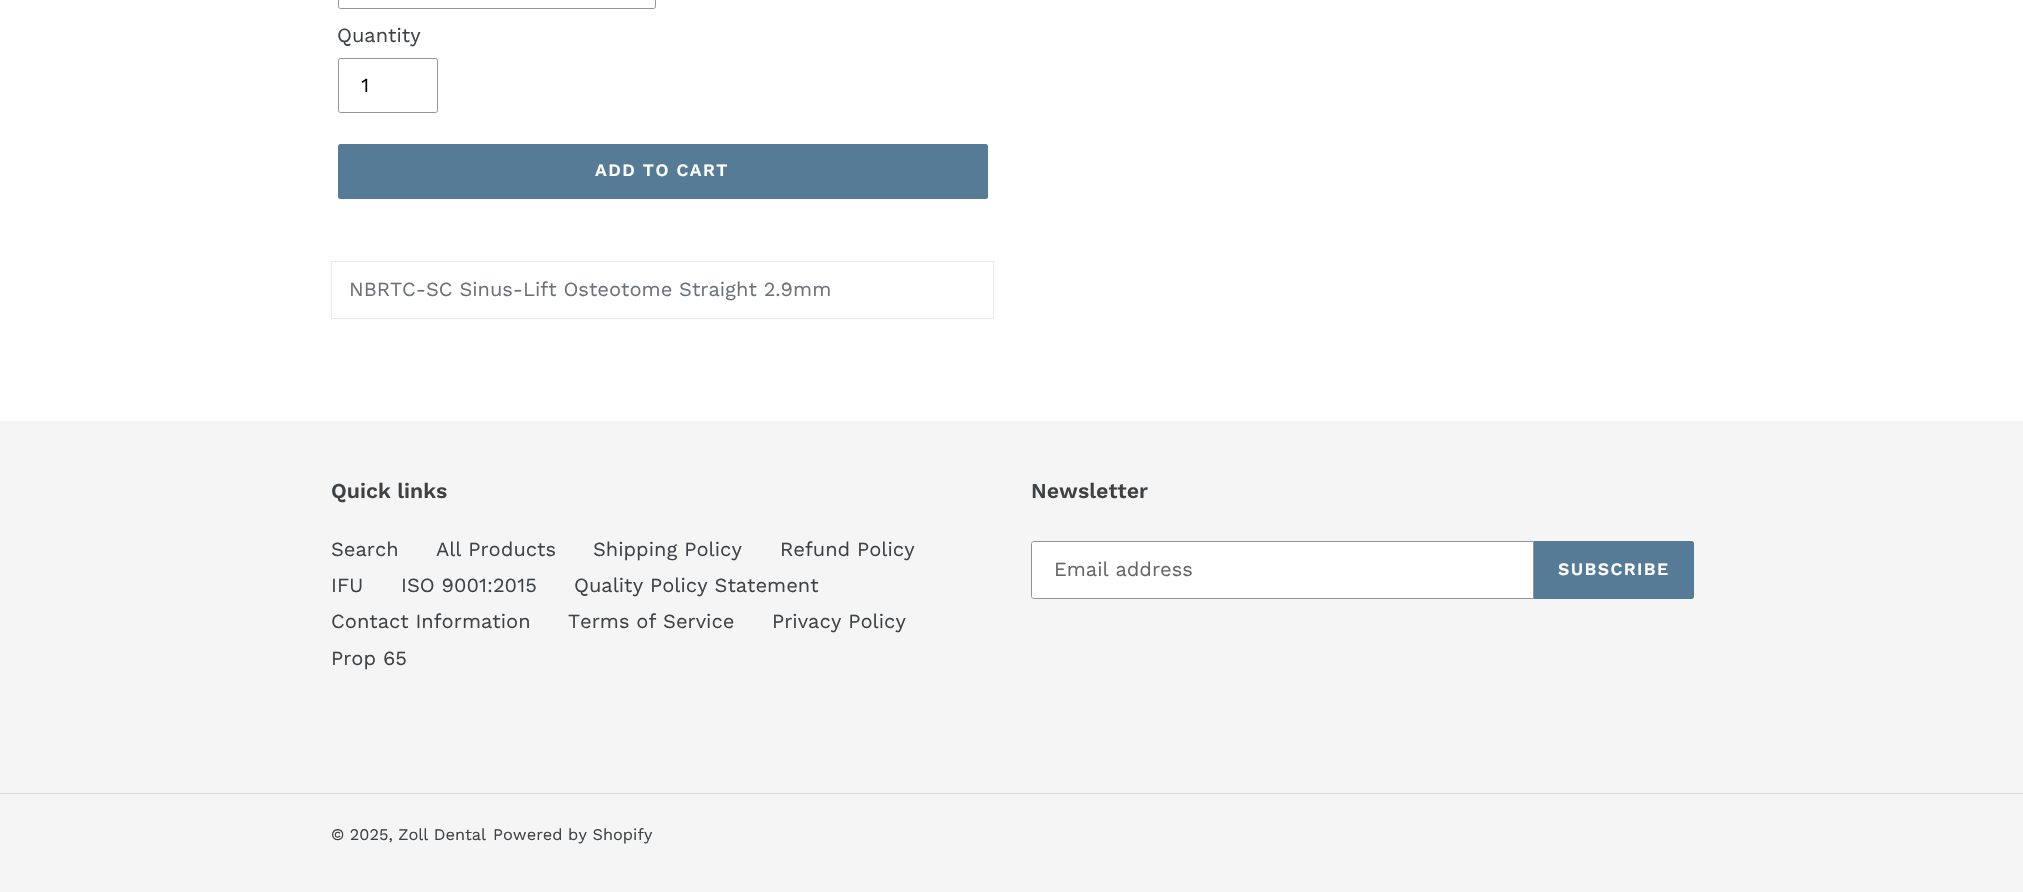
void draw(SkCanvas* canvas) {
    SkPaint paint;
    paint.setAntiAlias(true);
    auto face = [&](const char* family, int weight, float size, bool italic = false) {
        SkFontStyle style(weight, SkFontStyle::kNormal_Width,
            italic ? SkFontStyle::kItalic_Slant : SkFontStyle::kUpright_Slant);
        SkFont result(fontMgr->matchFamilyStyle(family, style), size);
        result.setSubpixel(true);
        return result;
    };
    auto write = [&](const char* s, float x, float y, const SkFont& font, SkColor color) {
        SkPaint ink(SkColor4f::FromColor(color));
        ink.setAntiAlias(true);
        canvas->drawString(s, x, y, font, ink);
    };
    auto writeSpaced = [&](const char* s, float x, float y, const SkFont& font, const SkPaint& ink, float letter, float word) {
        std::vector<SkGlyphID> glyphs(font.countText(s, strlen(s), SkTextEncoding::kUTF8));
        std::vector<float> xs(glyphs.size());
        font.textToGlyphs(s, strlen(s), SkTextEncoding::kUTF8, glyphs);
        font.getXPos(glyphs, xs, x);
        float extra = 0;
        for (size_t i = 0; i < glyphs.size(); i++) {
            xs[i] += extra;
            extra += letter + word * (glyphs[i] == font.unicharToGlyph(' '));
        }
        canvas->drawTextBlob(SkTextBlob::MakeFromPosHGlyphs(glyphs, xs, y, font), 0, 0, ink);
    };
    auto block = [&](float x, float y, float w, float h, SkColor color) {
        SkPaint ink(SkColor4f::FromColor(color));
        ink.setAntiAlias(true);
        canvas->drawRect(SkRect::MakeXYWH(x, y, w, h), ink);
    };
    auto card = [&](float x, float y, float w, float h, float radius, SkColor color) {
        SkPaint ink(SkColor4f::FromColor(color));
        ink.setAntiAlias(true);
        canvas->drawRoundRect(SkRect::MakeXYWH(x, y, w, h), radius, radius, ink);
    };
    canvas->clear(SK_ColorWHITE);
    paint.setStyle(SkPaint::kStroke_Style);
    paint.setStrokeWidth(1);
    paint.setColor(SkColorSetRGB(148, 148, 148));
    canvas->drawRoundRect(SkRect::MakeXYWH(338.5f, -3.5f, 317, 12), 2, 2, paint);
    auto kFont1 = face("Work Sans", 400, 20);
    write("Quantity", 337, 42, kFont1, SkColorSetRGB(61, 66, 70));
    canvas->drawRoundRect(SkRect::MakeXYWH(338.5f, 58.5f, 99, 54), 2, 2, paint);
    write("1", 361, 92, kFont1, SK_ColorBLACK);
    card(338, 144, 650, 55, 2.5f, SkColorSetRGB(85, 123, 151));
    auto kFont2 = face("Work Sans", 600, 17.5f);
    paint.setStyle(SkPaint::kFill_Style);
    paint.setColor(SK_ColorWHITE);
    writeSpaced("ADD TO CART", 595, 176, kFont2, paint, 1.4f, 0);
    block(331, 261, 663, 1, SkColorSetRGB(232, 233, 235));
    block(993, 261, 1, 58, SkColorSetRGB(232, 233, 235));
    block(331, 318, 663, 1, SkColorSetRGB(232, 233, 235));
    block(331, 261, 1, 58, SkColorSetRGB(232, 233, 235));
    write("NBRTC-SC Sinus-Lift Osteotome Straight 2.9mm", 349, 296, kFont1, SkColorSetRGB(105, 114, 123));
    block(0, 421, 2023, 471, SkColorSetRGB(245, 245, 245));
    auto kFont3 = face("Work Sans", 600, 21.25f);
    write("Quick links", 331, 498, kFont3, SkColorSetRGB(61, 66, 70));
    write("Search", 331, 556, kFont1, SkColorSetRGB(61, 66, 70));
    write("All Products", 436, 556, kFont1, SkColorSetRGB(61, 66, 70));
    write("Shipping Policy", 593, 556, kFont1, SkColorSetRGB(61, 66, 70));
    write("Refund Policy", 780, 556, kFont1, SkColorSetRGB(61, 66, 70));
    write("IFU", 331, 592, kFont1, SkColorSetRGB(61, 66, 70));
    write("ISO 9001:2015", 401, 592, kFont1, SkColorSetRGB(61, 66, 70));
    write("Quality Policy Statement", 574, 592, kFont1, SkColorSetRGB(61, 66, 70));
    write("Contact Information", 331, 628, kFont1, SkColorSetRGB(61, 66, 70));
    write("Terms of Service", 568, 628, kFont1, SkColorSetRGB(61, 66, 70));
    write("Privacy Policy", 772, 628, kFont1, SkColorSetRGB(61, 66, 70));
    write("Prop 65", 331, 665, kFont1, SkColorSetRGB(61, 66, 70));
    write("Newsletter", 1031, 498, kFont3, SkColorSetRGB(61, 66, 70));
    canvas->drawPath(SkPathBuilder().moveTo(1033.5f, 541.5f).lineTo(1533.5f, 541.5f).lineTo(1533.5f, 598.5f).lineTo(1033.5f, 598.5f).cubicTo(1032.5f, 598.5f, 1031.5f, 597.5f, 1031.5f, 596.5f).lineTo(1031.5f, 543.5f).cubicTo(1031.5f, 542.5f, 1032.5f, 541.5f, 1033.5f, 541.5f).close().detach(), paint);
    paint.setStyle(SkPaint::kStroke_Style);
    paint.setColor(SkColorSetRGB(148, 148, 148));
    canvas->drawPath(SkPathBuilder().moveTo(1033.5f, 541.5f).lineTo(1533.5f, 541.5f).lineTo(1533.5f, 598.5f).lineTo(1033.5f, 598.5f).cubicTo(1032.5f, 598.5f, 1031.5f, 597.5f, 1031.5f, 596.5f).lineTo(1031.5f, 543.5f).cubicTo(1031.5f, 542.5f, 1032.5f, 541.5f, 1033.5f, 541.5f).close().detach(), paint);
    write("Email address", 1054, 576, kFont1, SkColorSetRGB(102, 102, 102));
    paint.setStyle(SkPaint::kFill_Style);
    paint.setColor(SkColorSetRGB(85, 123, 151));
    canvas->drawPath(SkPathBuilder().moveTo(1534, 541).lineTo(1691.5f, 541).cubicTo(1693, 541, 1694, 542, 1694, 543.5f).lineTo(1694, 596.5f).cubicTo(1694, 598, 1693, 599, 1691.5f, 599).lineTo(1534, 599).close().detach(), paint);
    paint.setColor(SK_ColorWHITE);
    writeSpaced("SUBSCRIBE", 1558, 575, kFont2, paint, 1.4f, 0);
    block(0, 793, 2023, 1, SkColorSetRGB(220, 220, 220));
    auto kFont4 = face("Work Sans", 400, 16.25f);
    write("© 2025, Zoll Dental", 331, 840, kFont4, SkColorSetRGB(61, 66, 70));
    write("Powered by Shopify", 493, 840, kFont4, SkColorSetRGB(61, 66, 70));
}
